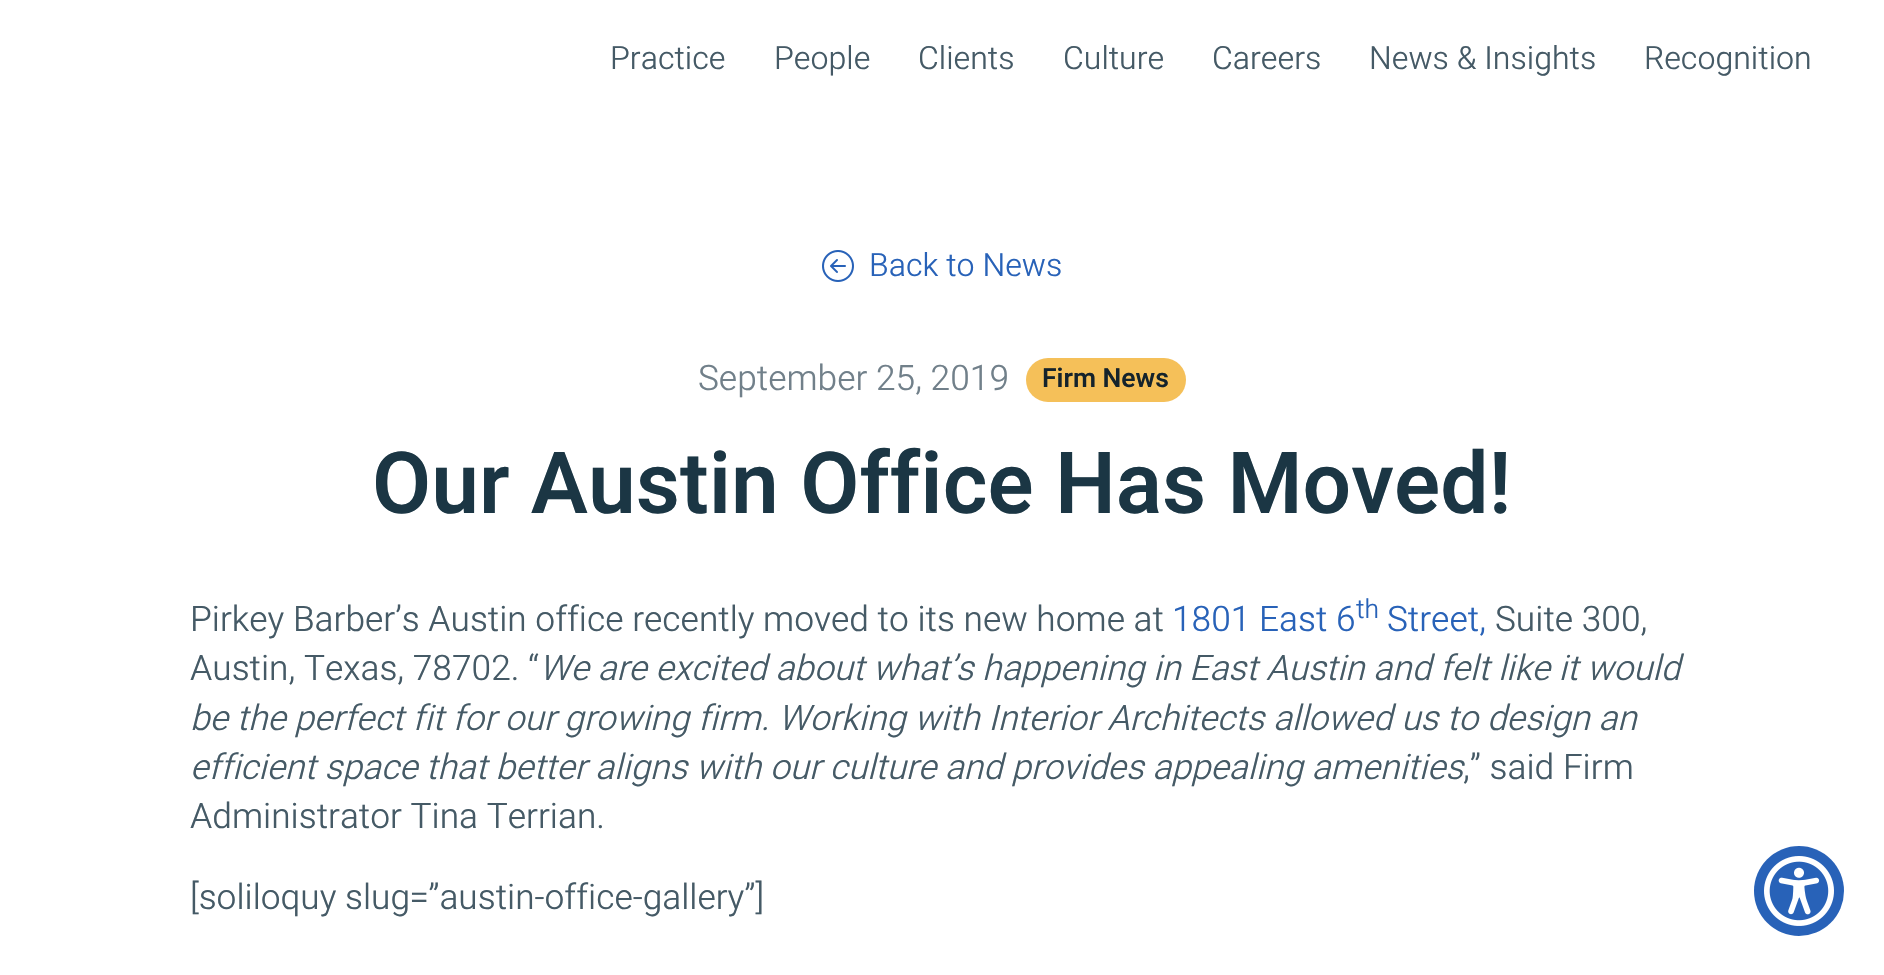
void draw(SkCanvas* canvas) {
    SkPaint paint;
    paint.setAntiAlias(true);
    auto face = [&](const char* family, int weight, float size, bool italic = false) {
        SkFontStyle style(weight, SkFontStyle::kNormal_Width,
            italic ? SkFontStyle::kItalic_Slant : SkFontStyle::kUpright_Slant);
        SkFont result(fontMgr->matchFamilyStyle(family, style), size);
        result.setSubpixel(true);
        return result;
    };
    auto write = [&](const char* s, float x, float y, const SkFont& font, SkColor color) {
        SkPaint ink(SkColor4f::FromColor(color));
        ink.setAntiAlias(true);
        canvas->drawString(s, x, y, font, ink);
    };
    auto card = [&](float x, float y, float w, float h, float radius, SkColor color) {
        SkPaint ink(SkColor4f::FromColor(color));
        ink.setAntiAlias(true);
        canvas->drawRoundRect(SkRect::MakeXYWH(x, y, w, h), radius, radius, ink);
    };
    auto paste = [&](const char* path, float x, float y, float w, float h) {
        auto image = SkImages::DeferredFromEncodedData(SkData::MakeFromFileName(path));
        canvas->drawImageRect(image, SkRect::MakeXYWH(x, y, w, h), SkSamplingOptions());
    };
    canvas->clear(SK_ColorWHITE);
    auto kFont1 = face("Heebo", 300, 32);
    write("Practice", 610, 69, kFont1, SkColorSetRGB(69, 90, 102));
    write("People", 774, 69, kFont1, SkColorSetRGB(69, 90, 102));
    write("Clients", 918, 69, kFont1, SkColorSetRGB(69, 90, 102));
    write("Culture", 1063, 69, kFont1, SkColorSetRGB(69, 90, 102));
    write("Careers", 1212, 69, kFont1, SkColorSetRGB(69, 90, 102));
    write("News & Insights", 1369, 69, kFont1, SkColorSetRGB(69, 90, 102));
    write("Recognition", 1644, 69, kFont1, SkColorSetRGB(69, 90, 102));
    paste("pic1.png", 822, 250, 32, 32);
    write("Back to News", 869, 276, kFont1, SkColorSetRGB(40, 98, 184));
    auto kFont2 = face("Heebo", 300, 35.2f);
    write("September 25, 2019", 698, 390, kFont2, SkColorSetRGB(113, 128, 138));
    card(1026, 358, 160, 44, 22, SkColorSetRGB(245, 192, 89));
    auto kFont3 = face("Heebo", 600, 26.5f);
    write("Firm News", 1042, 387, kFont3, SkColorSetRGB(21, 35, 43));
    auto kFont4 = face("Heebo", 600, 85.75f);
    write("Our Austin Office Has Moved!", 372, 513, kFont4, SkColorSetRGB(27, 54, 68));
    write("Pirkey Barber’s Austin office recently moved to its new home at", 190, 631, kFont2, SkColorSetRGB(69, 90, 102));
    write("1801 East 6", 1172, 631, kFont2, SkColorSetRGB(40, 98, 184));
    auto kFont5 = face("Heebo", 300, 26.5f);
    write("th", 1356, 618, kFont5, SkColorSetRGB(40, 98, 184));
    write("Street,", 1387, 631, kFont2, SkColorSetRGB(40, 98, 184));
    write("Suite 300,", 1495, 631, kFont2, SkColorSetRGB(69, 90, 102));
    write("Austin, Texas, 78702. “", 190, 680, kFont2, SkColorSetRGB(69, 90, 102));
    auto kFont6 = face("Heebo", 300, 35.2f, true);
    write("We are excited about what’s happening in East Austin and felt like it would", 539, 680, kFont6, SkColorSetRGB(69, 90, 102));
    write("be the perfect fit for our growing firm. Working with Interior Architects allowed us to design an", 190, 730, kFont6, SkColorSetRGB(69, 90, 102));
    write("efficient space that better aligns with our culture and provides appealing amenities", 190, 779, kFont6, SkColorSetRGB(69, 90, 102));
    write(",” said Firm", 1463, 779, kFont2, SkColorSetRGB(69, 90, 102));
    write("Administrator Tina Terrian.", 190, 828, kFont2, SkColorSetRGB(69, 90, 102));
    write("[soliloquy slug=”austin-office-gallery”]", 190, 909, kFont2, SkColorSetRGB(69, 90, 102));
    paint.setColor(SkColorSetRGB(40, 98, 184));
    canvas->drawCircle(1799, 891, 45, paint);
    paste("pic2.png", 1764, 856, 70, 70);
}
